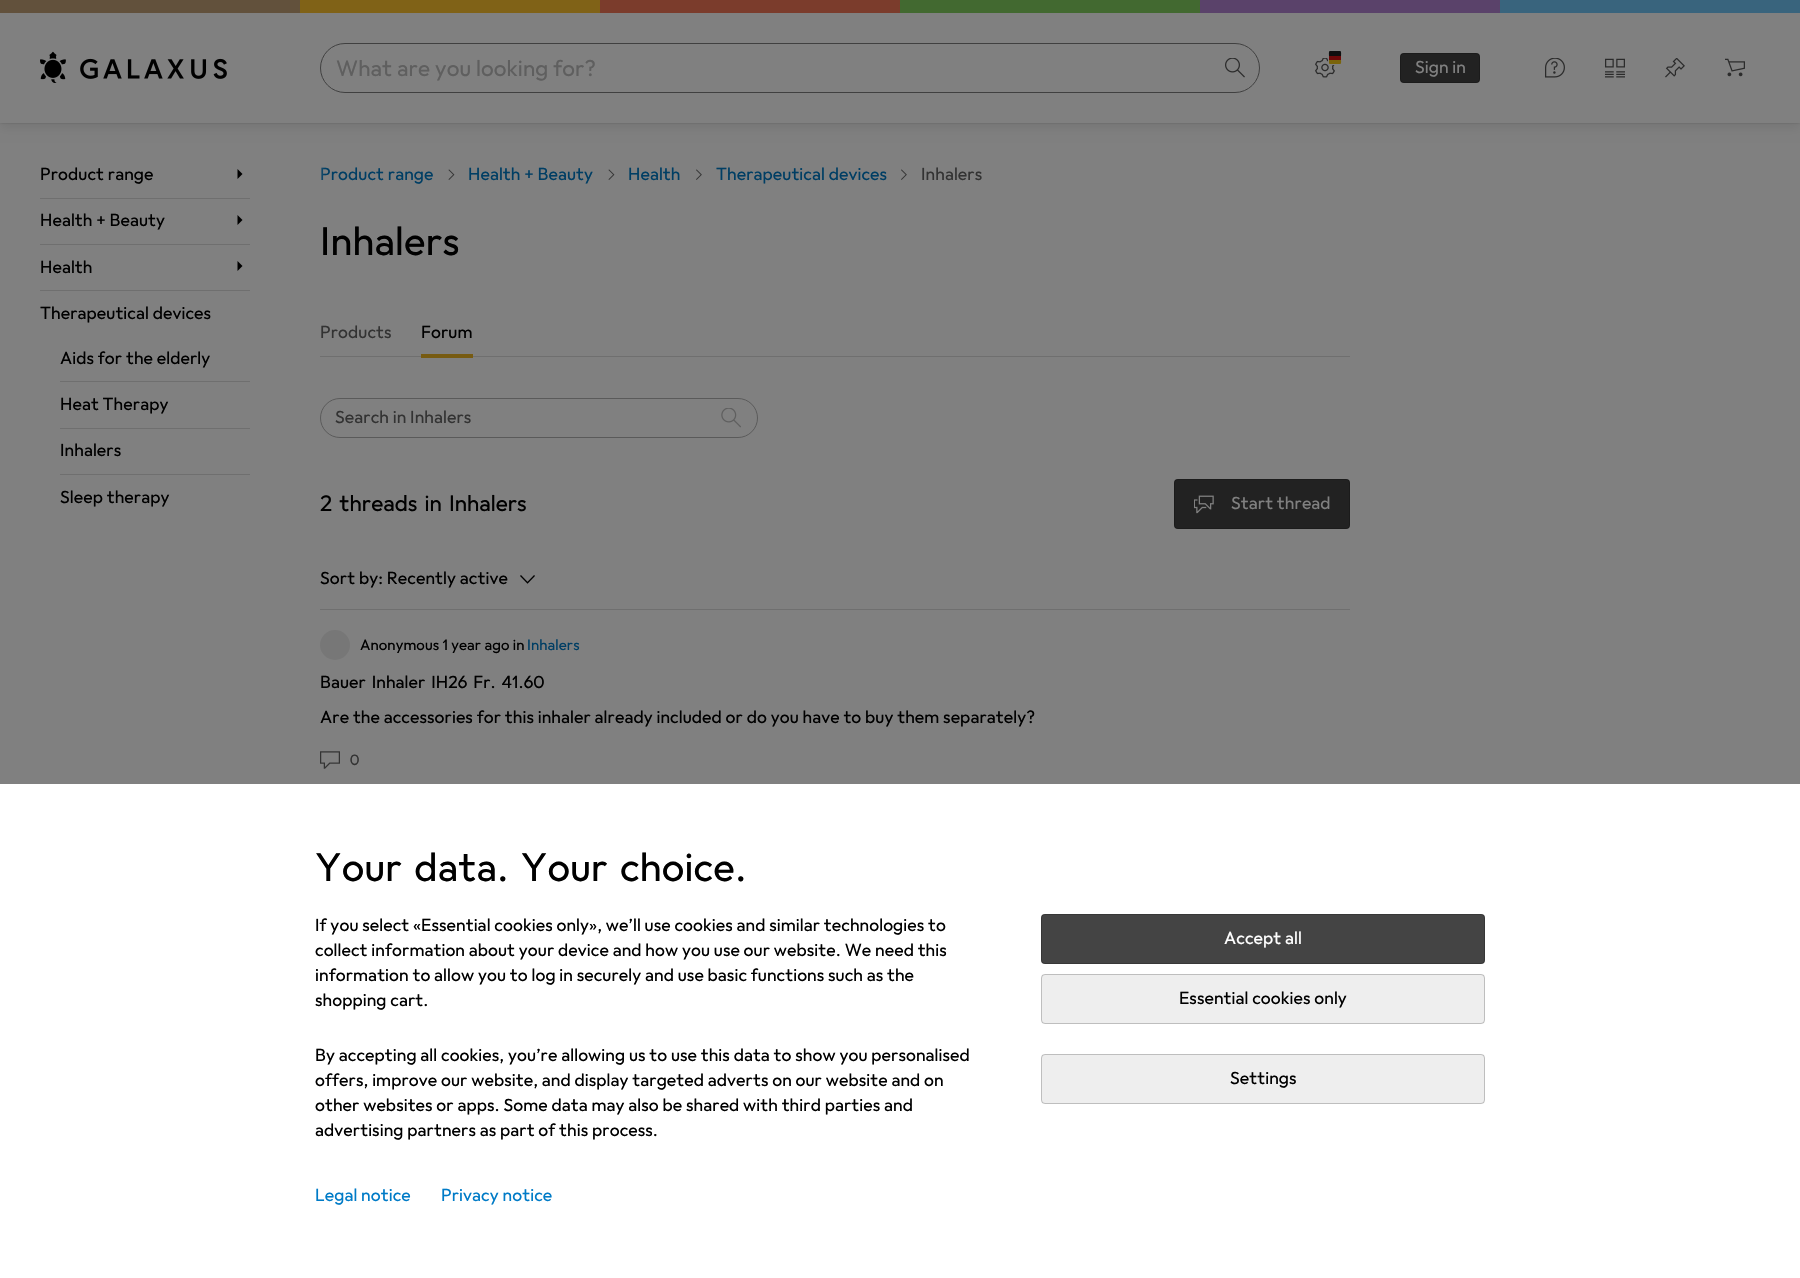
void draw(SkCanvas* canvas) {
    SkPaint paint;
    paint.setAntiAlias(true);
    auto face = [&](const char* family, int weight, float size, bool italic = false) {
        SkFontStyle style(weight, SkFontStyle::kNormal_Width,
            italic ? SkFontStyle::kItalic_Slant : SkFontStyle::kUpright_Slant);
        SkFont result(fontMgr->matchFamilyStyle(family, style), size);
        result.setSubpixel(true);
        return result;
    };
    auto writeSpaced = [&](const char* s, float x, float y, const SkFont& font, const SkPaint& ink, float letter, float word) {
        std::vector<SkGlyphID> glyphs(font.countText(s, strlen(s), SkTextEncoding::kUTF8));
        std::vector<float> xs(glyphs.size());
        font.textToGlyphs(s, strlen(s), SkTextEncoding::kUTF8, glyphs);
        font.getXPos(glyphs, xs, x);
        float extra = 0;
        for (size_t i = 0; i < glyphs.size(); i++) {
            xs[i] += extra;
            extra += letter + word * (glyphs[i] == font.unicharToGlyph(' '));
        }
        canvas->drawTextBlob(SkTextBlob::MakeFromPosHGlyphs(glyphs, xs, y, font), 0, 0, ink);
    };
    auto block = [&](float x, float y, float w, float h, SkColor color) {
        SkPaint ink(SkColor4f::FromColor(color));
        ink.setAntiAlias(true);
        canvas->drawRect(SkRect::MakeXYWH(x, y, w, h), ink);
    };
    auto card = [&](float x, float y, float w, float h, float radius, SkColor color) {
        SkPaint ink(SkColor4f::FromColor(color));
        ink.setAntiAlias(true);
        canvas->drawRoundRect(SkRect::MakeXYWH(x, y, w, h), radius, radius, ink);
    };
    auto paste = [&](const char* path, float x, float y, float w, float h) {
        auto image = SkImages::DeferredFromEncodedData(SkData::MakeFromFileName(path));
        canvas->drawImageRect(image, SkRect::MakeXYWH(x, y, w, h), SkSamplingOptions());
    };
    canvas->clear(SkColorSetRGB(128, 128, 128));
    paint.setColor(SkColorSetARGB(20, 0, 0, 0));
    paint.setMaskFilter(SkMaskFilter::MakeBlur(kNormal_SkBlurStyle, 5));
    canvas->drawRect(SkRect::MakeXYWH(0, 5, 1800, 123), paint);
    paint.setMaskFilter(nullptr);
    paint.setColor(SkColorSetARGB(41, 0, 0, 0));
    paint.setMaskFilter(SkMaskFilter::MakeBlur(kNormal_SkBlurStyle, 1));
    canvas->drawRect(SkRect::MakeXYWH(0, 0, 1800, 123), paint);
    paint.setMaskFilter(nullptr);
    block(0, 13, 1800, 110, SkColorSetRGB(128, 128, 128));
    block(0, 0, 300, 13, SkColorSetRGB(98, 81, 60));
    block(300, 0, 300, 13, SkColorSetRGB(128, 98, 23));
    block(600, 0, 300, 13, SkColorSetRGB(123, 60, 44));
    block(900, 0, 300, 13, SkColorSetRGB(66, 105, 48));
    block(1200, 0, 300, 13, SkColorSetRGB(90, 66, 106));
    block(1500, 0, 300, 13, SkColorSetRGB(57, 100, 125));
    paste("pic1.png", 40, 51, 187, 32);
    paint.setStyle(SkPaint::kStroke_Style);
    paint.setStrokeWidth(1);
    paint.setColor(SkColorSetRGB(64, 64, 64));
    canvas->drawRoundRect(SkRect::MakeXYWH(320.5f, 43.5f, 939, 49), 24.5f, 24.5f, paint);
    auto kFont1 = face("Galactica", 400, 22.5f);
    paint.setStyle(SkPaint::kFill_Style);
    paint.setColor(SkColorSetRGB(95, 95, 95));
    writeSpaced("What are you looking for?", 336, 76, kFont1, paint, 0.1f, 0);
    paste("pic2.png", 1225, 58, 20, 20);
    paste("pic3.png", 1315, 58, 20, 20);
    paint.setStyle(SkPaint::kStroke_Style);
    paint.setColor(SkColorSetRGB(128, 128, 128));
    canvas->drawRoundRect(SkRect::MakeXYWH(1328.5f, 50.5f, 14, 14), 2, 2, paint);
    paint.setStyle(SkPaint::kFill_Style);
    paint.setColor(SkColorSetRGB(122, 100, 11));
    canvas->drawPath(SkPathBuilder().moveTo(1329, 60).lineTo(1341, 60).cubicTo(1341, 61, 1341.5f, 63, 1340.5f, 64).lineTo(1329.5f, 64).lineTo(1329, 63).close().detach(), paint);
    block(1329, 56, 12, 4, SkColorSetRGB(109, 9, 9));
    paint.setColor(SkColorSetRGB(15, 15, 15));
    canvas->drawPath(SkPathBuilder().moveTo(1340.5f, 51).lineTo(1329.5f, 51).cubicTo(1328.5f, 52, 1329, 55, 1329, 56).lineTo(1341, 56).cubicTo(1341, 55, 1341.5f, 52, 1340.5f, 51).close().detach(), paint);
    card(1400, 53, 80, 30, 4, SkColorSetRGB(34, 34, 34));
    paint.setStyle(SkPaint::kStroke_Style);
    paint.setColor(SkColorSetARGB(51, 0, 0, 0));
    canvas->drawRoundRect(SkRect::MakeXYWH(1400.5f, 53.5f, 79, 29), 3.5f, 3.5f, paint);
    auto kFont2 = face("Galactica", 400, 17.5f);
    paint.setStyle(SkPaint::kFill_Style);
    paint.setColor(SkColorSetRGB(128, 128, 128));
    writeSpaced("Sign in", 1415, 73, kFont2, paint, 0.1f, 0);
    paste("pic4.png", 1545, 58, 20, 20);
    paste("pic5.png", 1605, 58, 20, 20);
    paste("pic6.png", 1665, 58, 20, 20);
    paste("pic7.png", 1725, 58, 20, 19);
    block(40, 198, 210, 1, SkColorSetRGB(111, 111, 111));
    paint.setColor(SK_ColorBLACK);
    writeSpaced("Product range", 40, 180, kFont2, paint, 0.1f, 0);
    canvas->drawPath(SkPathBuilder().moveTo(237.5f, 179).lineTo(237.5f, 169).lineTo(242.5f, 174).close().detach(), paint);
    block(40, 244, 210, 1, SkColorSetRGB(111, 111, 111));
    writeSpaced("Health + Beauty", 40, 226, kFont2, paint, 0.1f, 0);
    canvas->drawPath(SkPathBuilder().moveTo(237.5f, 225).lineTo(237.5f, 215).lineTo(242.5f, 220).close().detach(), paint);
    block(40, 290, 210, 1, SkColorSetRGB(111, 111, 111));
    writeSpaced("Health", 40, 273, kFont2, paint, 0.1f, 0);
    canvas->drawPath(SkPathBuilder().moveTo(237.5f, 271).lineTo(237.5f, 261).lineTo(242.5f, 266).close().detach(), paint);
    writeSpaced("Therapeutical devices", 40, 319, kFont2, paint, 0.1f, 0);
    block(60, 381, 190, 1, SkColorSetRGB(111, 111, 111));
    writeSpaced("Aids for the elderly", 60, 364, kFont2, paint, 0.1f, 0);
    block(60, 428, 190, 1, SkColorSetRGB(111, 111, 111));
    writeSpaced("Heat Therapy", 60, 410, kFont2, paint, 0.1f, 0);
    block(60, 474, 190, 1, SkColorSetRGB(111, 111, 111));
    writeSpaced("Inhalers", 60, 456, kFont2, paint, 0.1f, 0);
    writeSpaced("Sleep therapy", 60, 503, kFont2, paint, 0.1f, 0);
    paint.setColor(SkColorSetRGB(0, 62, 100));
    writeSpaced("Product range", 320, 180, kFont2, paint, 0.1f, 0);
    paste("pic8.png", 448, 169, 7, 11);
    writeSpaced("Health + Beauty", 468, 180, kFont2, paint, 0.1f, 0);
    paste("pic8.png", 608, 169, 7, 11);
    writeSpaced("Health", 628, 180, kFont2, paint, 0.1f, 0);
    paste("pic9.png", 696, 169, 6, 11);
    writeSpaced("Therapeutical devices", 716, 180, kFont2, paint, 0.1f, 0);
    paste("pic9.png", 901, 169, 6, 11);
    paint.setColor(SkColorSetRGB(51, 51, 51));
    writeSpaced("Inhalers", 921, 180, kFont2, paint, 0.1f, 0);
    {
        const SkColor colors[] = {SkColorSetRGB(128, 128, 128), SkColorSetARGB(0, 128, 128, 128)};
        const float stops[] = {0, 1};
        const SkPoint ends[] = {{305, 175}, {325, 175}};
        paint.setShader(SkGradientShader::MakeLinear(ends, colors, stops, 2, SkTileMode::kClamp));
        paint.setAlpha(255);
    }
    canvas->drawRect(SkRect::MakeXYWH(321, 168, 4, 12), paint);
    auto kFont3 = face("Galactica", 400, 40);
    paint.setShader(nullptr);
    paint.setColor(SK_ColorBLACK);
    writeSpaced("Inhalers", 320, 255, kFont3, paint, 0.2f, 0);
    block(320, 356, 1030, 1, SkColorSetRGB(111, 111, 111));
    paint.setColor(SkColorSetRGB(51, 51, 51));
    writeSpaced("Products", 320, 338, kFont2, paint, 0.1f, 0);
    paint.setColor(SK_ColorBLACK);
    writeSpaced("Forum", 421, 338, kFont2, paint, 0.1f, 0);
    block(421, 354, 52, 4, SkColorSetRGB(119, 91, 18));
    paint.setStyle(SkPaint::kStroke_Style);
    paint.setColor(SkColorSetRGB(90, 90, 90));
    canvas->drawRoundRect(SkRect::MakeXYWH(320.5f, 398.5f, 437, 39), 19.5f, 19.5f, paint);
    paint.setStyle(SkPaint::kFill_Style);
    paint.setColor(SkColorSetRGB(51, 51, 51));
    writeSpaced("Search in Inhalers", 335, 423, kFont2, paint, 0.1f, 0);
    paste("pic10.png", 721, 408, 20, 20);
    paint.setColor(SK_ColorBLACK);
    writeSpaced("2 threads in Inhalers", 320, 511, kFont1, paint, 0, 2.5f);
    card(1174, 479, 176, 50, 4, SkColorSetRGB(34, 34, 34));
    paint.setStyle(SkPaint::kStroke_Style);
    paint.setColor(SkColorSetARGB(51, 0, 0, 0));
    canvas->drawRoundRect(SkRect::MakeXYWH(1174.5f, 479.5f, 175, 49), 3.5f, 3.5f, paint);
    paste("pic11.png", 1194, 495, 20, 19);
    paint.setStyle(SkPaint::kFill_Style);
    paint.setColor(SkColorSetRGB(128, 128, 128));
    writeSpaced("Start thread", 1231, 509, kFont2, paint, 0.1f, 0);
    paint.setColor(SK_ColorBLACK);
    writeSpaced("Sort by: Recently active", 320, 584, kFont2, paint, 0.1f, 0);
    paste("pic12.png", 520, 575, 15, 9);
    block(320, 609, 1030, 1, SkColorSetRGB(111, 111, 111));
    paint.setColor(SkColorSetRGB(119, 119, 119));
    canvas->drawCircle(335, 645, 15, paint);
    auto kFont4 = face("Galactica", 400, 15);
    paint.setColor(SK_ColorBLACK);
    writeSpaced("Anonymous 1 year ago in", 360, 650, kFont4, paint, 0.1f, 0);
    paint.setColor(SkColorSetRGB(0, 62, 100));
    writeSpaced("Inhalers", 527, 650, kFont4, paint, 0.1f, 0);
    paint.setColor(SK_ColorBLACK);
    writeSpaced("Bauer Inhaler IH26 Fr. 41.60", 320, 688, kFont2, paint, 0.1f, 2);
    writeSpaced("Are the accessories for this inhaler already included or do you have to buy them separately?", 320, 723, kFont2, paint, 0.1f, 0);
    paste("pic13.png", 320, 751, 20, 18);
    paint.setColor(SkColorSetRGB(51, 51, 51));
    writeSpaced("0", 350, 765, kFont4, paint, 0.1f, 0);
    block(0, 784, 1800, 494, SK_ColorWHITE);
    paint.setColor(SK_ColorBLACK);
    writeSpaced("Your data. Your choice.", 315, 881, kFont3, paint, 0.2f, 3.5f);
    writeSpaced("If you select «Essential cookies only», we’ll use cookies and similar technologies to", 315, 931, kFont2, paint, 0.1f, 0);
    writeSpaced("collect information about your device and how you use our website. We need this", 315, 956, kFont2, paint, 0.1f, 0);
    writeSpaced("information to allow you to log in securely and use basic functions such as the", 315, 981, kFont2, paint, 0.1f, 0);
    writeSpaced("shopping cart.", 315, 1006, kFont2, paint, 0.1f, 0);
    writeSpaced("By accepting all cookies, you’re allowing us to use this data to show you personalised", 315, 1061, kFont2, paint, 0.1f, 0);
    writeSpaced("offers, improve our website, and display targeted adverts on our website and on", 315, 1086, kFont2, paint, 0.1f, 0);
    writeSpaced("other websites or apps. Some data may also be shared with third parties and", 315, 1111, kFont2, paint, 0.1f, 0);
    writeSpaced("advertising partners as part of this process.", 315, 1136, kFont2, paint, 0.1f, 0);
    card(1041, 914, 444, 50, 4, SkColorSetRGB(68, 68, 68));
    paint.setStyle(SkPaint::kStroke_Style);
    paint.setColor(SkColorSetARGB(51, 0, 0, 0));
    canvas->drawRoundRect(SkRect::MakeXYWH(1041.5f, 914.5f, 443, 49), 3.5f, 3.5f, paint);
    paint.setStyle(SkPaint::kFill_Style);
    paint.setColor(SK_ColorWHITE);
    writeSpaced("Accept all", 1224, 944, kFont2, paint, 0.1f, 0);
    card(1041, 974, 444, 50, 4, SkColorSetRGB(238, 238, 238));
    paint.setStyle(SkPaint::kStroke_Style);
    paint.setColor(SkColorSetARGB(51, 0, 0, 0));
    canvas->drawRoundRect(SkRect::MakeXYWH(1041.5f, 974.5f, 443, 49), 3.5f, 3.5f, paint);
    paint.setStyle(SkPaint::kFill_Style);
    paint.setColor(SK_ColorBLACK);
    writeSpaced("Essential cookies only", 1179, 1004, kFont2, paint, 0.1f, 0);
    card(1041, 1054, 444, 50, 4, SkColorSetRGB(238, 238, 238));
    paint.setStyle(SkPaint::kStroke_Style);
    paint.setColor(SkColorSetARGB(51, 0, 0, 0));
    canvas->drawRoundRect(SkRect::MakeXYWH(1041.5f, 1054.5f, 443, 49), 3.5f, 3.5f, paint);
    paint.setStyle(SkPaint::kFill_Style);
    paint.setColor(SK_ColorBLACK);
    writeSpaced("Settings", 1230, 1084, kFont2, paint, 0.1f, 0);
    paint.setColor(SkColorSetRGB(0, 123, 199));
    writeSpaced("Legal notice", 315, 1201, kFont2, paint, 0.1f, 0);
    writeSpaced("Privacy notice", 441, 1201, kFont2, paint, 0.1f, 0);
}
